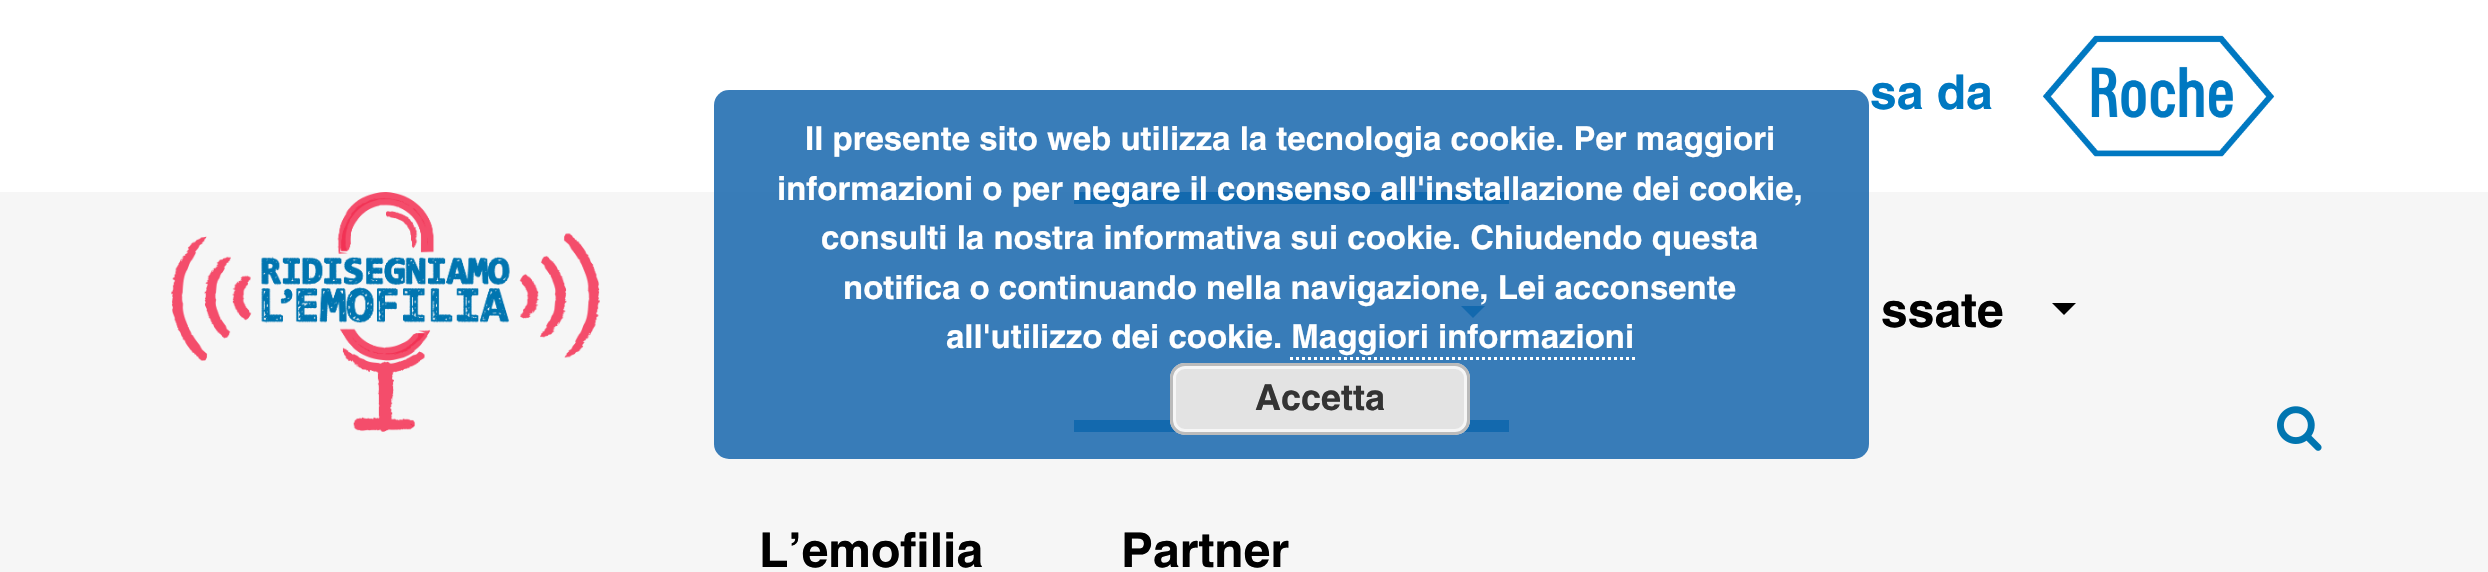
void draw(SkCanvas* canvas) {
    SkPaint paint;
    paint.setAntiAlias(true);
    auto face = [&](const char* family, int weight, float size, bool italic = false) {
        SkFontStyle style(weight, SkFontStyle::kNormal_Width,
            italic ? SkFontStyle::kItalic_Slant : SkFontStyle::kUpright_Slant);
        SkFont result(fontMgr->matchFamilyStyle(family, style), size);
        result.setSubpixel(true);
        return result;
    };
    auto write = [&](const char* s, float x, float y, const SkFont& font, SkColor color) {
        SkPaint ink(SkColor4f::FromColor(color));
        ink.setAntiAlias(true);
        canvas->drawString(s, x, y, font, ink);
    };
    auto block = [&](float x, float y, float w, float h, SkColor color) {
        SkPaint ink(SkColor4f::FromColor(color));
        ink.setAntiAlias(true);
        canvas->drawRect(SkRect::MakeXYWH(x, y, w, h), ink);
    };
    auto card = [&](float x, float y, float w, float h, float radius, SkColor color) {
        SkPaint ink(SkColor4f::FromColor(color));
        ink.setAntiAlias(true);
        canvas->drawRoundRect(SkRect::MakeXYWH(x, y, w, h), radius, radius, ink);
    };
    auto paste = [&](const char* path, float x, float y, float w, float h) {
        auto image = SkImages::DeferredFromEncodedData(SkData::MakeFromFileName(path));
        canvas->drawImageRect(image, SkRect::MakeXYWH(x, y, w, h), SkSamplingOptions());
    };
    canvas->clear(SK_ColorWHITE);
    auto kFont1 = face("Helvetica", 700, 48);
    write("sa da", 1870, 109, kFont1, SkColorSetRGB(0, 120, 193));
    paste("pic1.png", 2042, 35, 233, 122);
    block(0, 192, 2488, 380, SkColorSetRGB(246, 246, 246));
    block(1074, 192, 435, 240, SkColorSetRGB(0, 117, 176));
    block(1074, 204, 435, 216, SkColorSetRGB(246, 246, 246));
    paint.setColor(SkColorSetRGB(0, 117, 176));
    canvas->drawPath(SkPathBuilder().moveTo(1461, 306).lineTo(1485, 306).lineTo(1473, 318).close().detach(), paint);
    card(714, 90, 1155, 369, 15, SkColorSetARGB(217, 22, 102, 173));
    auto kFont2 = face("Helvetica", 700, 33);
    write("Il presente sito web utilizza la tecnologia cookie. Per maggiori", 805, 150, kFont2, SK_ColorWHITE);
    write("informazioni o per negare il consenso all'installazione dei cookie,", 777, 200, kFont2, SK_ColorWHITE);
    write("consulti la nostra informativa sui cookie. Chiudendo questa", 821, 249, kFont2, SK_ColorWHITE);
    write("notifica o continuando nella navigazione, Lei acconsente", 843, 299, kFont2, SK_ColorWHITE);
    write("all'utilizzo dei cookie. Maggiori informazioni", 946, 348, kFont2, SK_ColorWHITE);
    paint.setStyle(SkPaint::kStroke_Style);
    paint.setStrokeWidth(3);
    paint.setColor(SK_ColorWHITE);
    paint.setPathEffect(SkDashPathEffect::Make({{3, 3}}, 0));
    canvas->drawPath(SkPathBuilder().moveTo(1290, 358.5f).lineTo(1635, 358.5f).detach(), paint);
    paint.setPathEffect(nullptr);
    card(1170, 363, 300, 72, 15, SkColorSetRGB(227, 227, 227));
    paint.setColor(SkColorSetRGB(246, 246, 246));
    canvas->drawRoundRect(SkRect::MakeXYWH(1174.5f, 367.5f, 291, 63), 10.5f, 10.5f, paint);
    paint.setColor(SkColorSetRGB(187, 187, 187));
    canvas->drawRoundRect(SkRect::MakeXYWH(1171.5f, 364.5f, 297, 69), 13.5f, 13.5f, paint);
    auto kFont3 = face("Helvetica", 700, 36);
    write("Accetta", 1255, 410, kFont3, SkColorSetRGB(51, 51, 51));
    paste("pic2.png", 171, 192, 429, 240);
    write("ssate", 1881, 327, kFont1, SK_ColorBLACK);
    paint.setStyle(SkPaint::kFill_Style);
    paint.setColor(SK_ColorBLACK);
    canvas->drawPath(SkPathBuilder().moveTo(2052, 303).lineTo(2076, 303).lineTo(2064, 315).close().detach(), paint);
    write("L’emofilia", 759, 567, kFont1, SK_ColorBLACK);
    write("Partner", 1121, 567, kFont1, SK_ColorBLACK);
    paste("pic3.png", 2277, 406, 45, 45);
}
